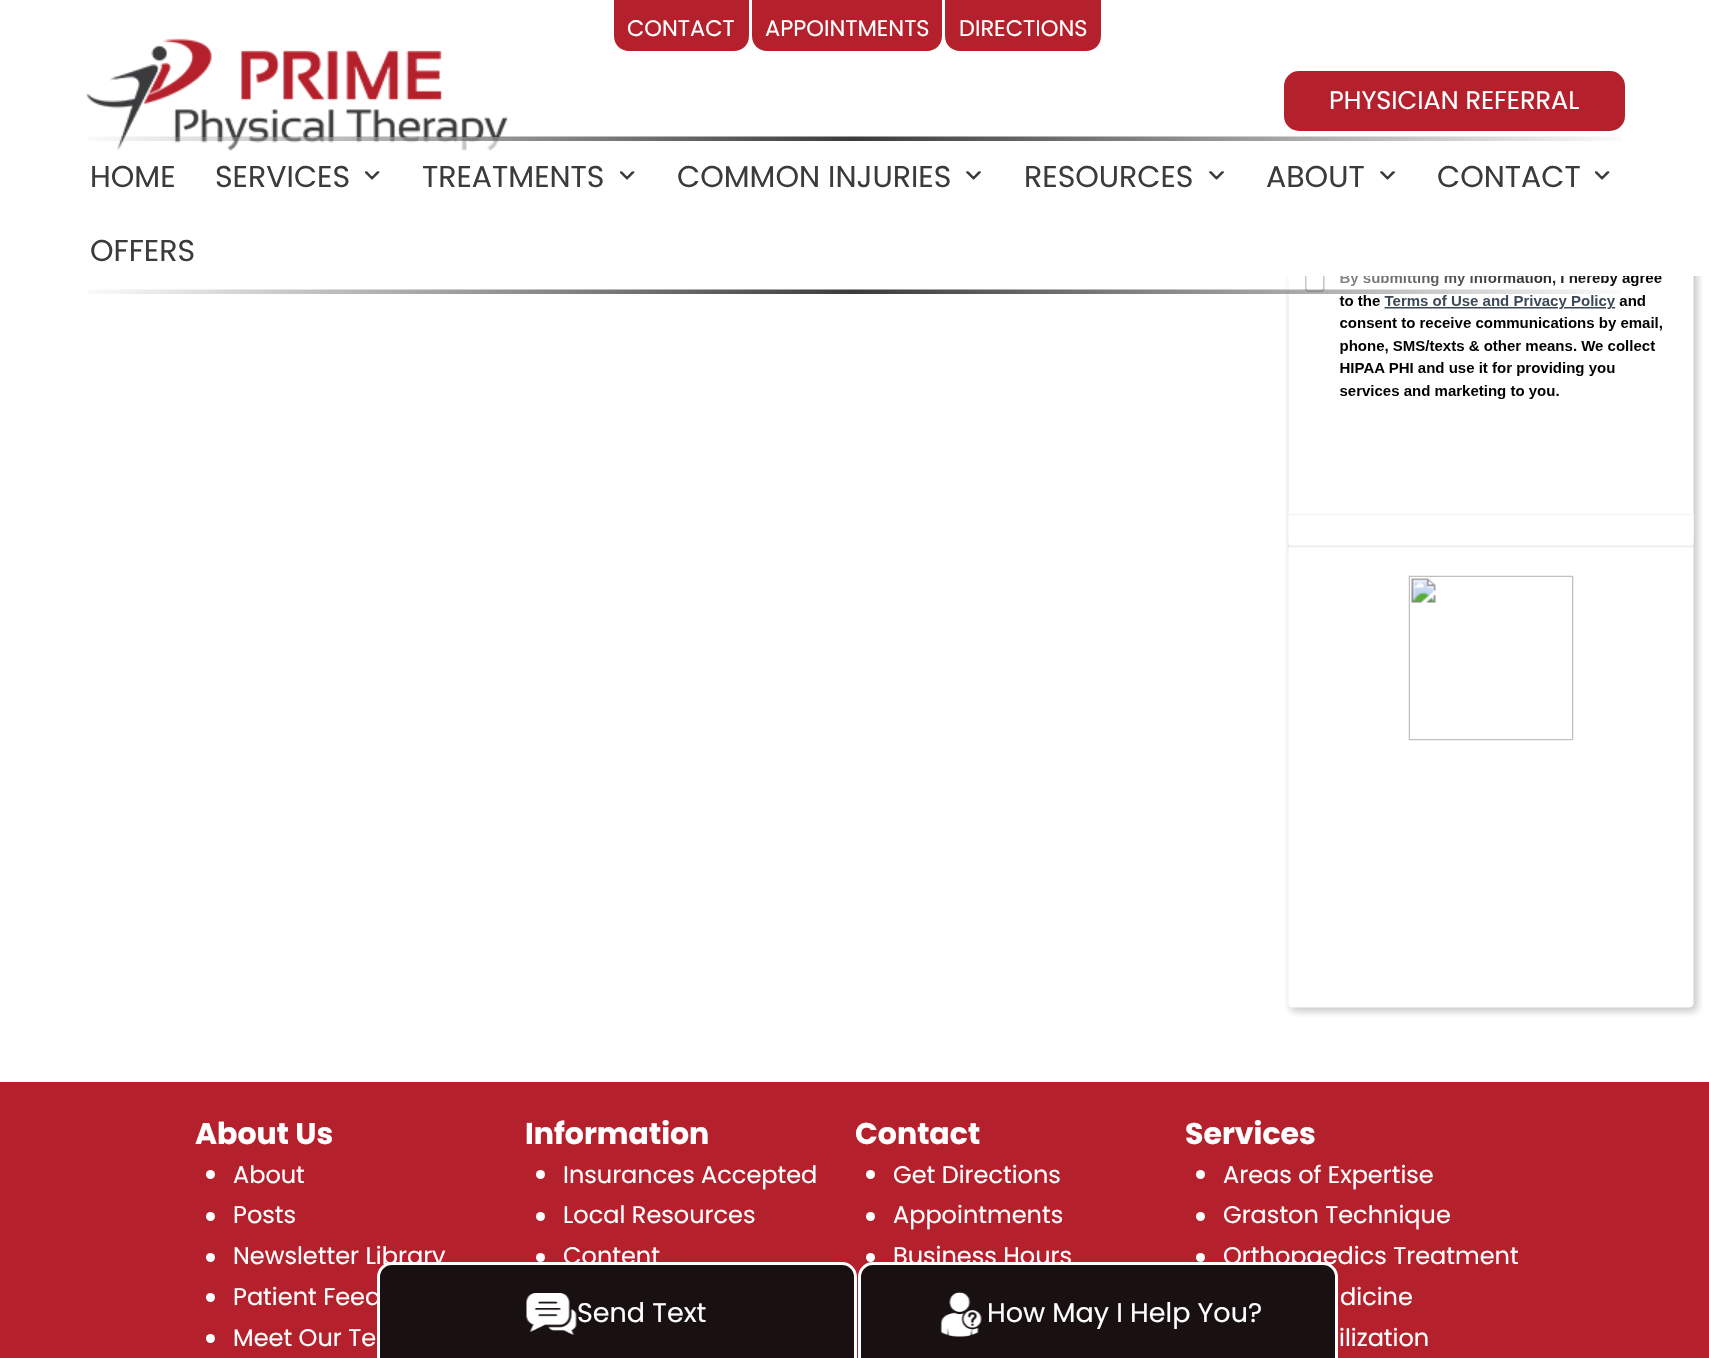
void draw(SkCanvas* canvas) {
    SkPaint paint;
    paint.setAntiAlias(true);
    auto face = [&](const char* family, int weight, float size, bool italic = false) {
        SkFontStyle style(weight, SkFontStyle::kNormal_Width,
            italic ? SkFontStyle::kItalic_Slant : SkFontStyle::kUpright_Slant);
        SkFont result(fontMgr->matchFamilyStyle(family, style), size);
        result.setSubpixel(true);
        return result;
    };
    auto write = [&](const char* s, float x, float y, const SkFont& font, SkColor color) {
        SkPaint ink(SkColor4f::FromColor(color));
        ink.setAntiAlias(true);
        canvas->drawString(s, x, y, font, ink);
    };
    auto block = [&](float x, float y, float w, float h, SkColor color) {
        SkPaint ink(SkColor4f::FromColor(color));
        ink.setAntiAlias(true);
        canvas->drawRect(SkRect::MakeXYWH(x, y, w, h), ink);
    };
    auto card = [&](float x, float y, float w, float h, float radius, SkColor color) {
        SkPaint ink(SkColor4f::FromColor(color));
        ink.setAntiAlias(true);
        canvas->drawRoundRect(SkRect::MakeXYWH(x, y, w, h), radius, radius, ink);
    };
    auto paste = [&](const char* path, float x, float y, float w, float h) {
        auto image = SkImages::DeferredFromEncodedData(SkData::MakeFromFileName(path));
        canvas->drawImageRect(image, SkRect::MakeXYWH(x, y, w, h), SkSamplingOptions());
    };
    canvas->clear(SK_ColorWHITE);
    paint.setColor(SkColorSetRGB(180, 32, 43));
    canvas->drawPath(SkPathBuilder().moveTo(614, -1).lineTo(749, -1).lineTo(749, 36).cubicTo(749, 44.5f, 742.5f, 51, 734, 51).lineTo(629, 51).cubicTo(620.5f, 51, 614, 44.5f, 614, 36).close().detach(), paint);
    auto kFont1 = face("Poppins", 400, 22.5f);
    write("CONTACT", 627, 36, kFont1, SK_ColorWHITE);
    canvas->drawPath(SkPathBuilder().moveTo(752, -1).lineTo(942, -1).lineTo(942, 36).cubicTo(942, 44.5f, 935.5f, 51, 927, 51).lineTo(767, 51).cubicTo(758.5f, 51, 752, 44.5f, 752, 36).close().detach(), paint);
    write("APPOINTMENTS", 765, 36, kFont1, SK_ColorWHITE);
    canvas->drawPath(SkPathBuilder().moveTo(945, -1).lineTo(1101, -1).lineTo(1101, 36).cubicTo(1101, 44.5f, 1094.5f, 51, 1086, 51).lineTo(960, 51).cubicTo(951.5f, 51, 945, 44.5f, 945, 36).close().detach(), paint);
    write("DIRECTIONS", 959, 36, kFont1, SK_ColorWHITE);
    paste("pic1.png", 86, 38, 422, 113);
    card(1284, 71, 341, 60, 15, SkColorSetRGB(180, 32, 43));
    auto kFont2 = face("Poppins", 400, 25.5f);
    write("PHYSICIAN REFERRAL", 1329, 109, kFont2, SK_ColorWHITE);
    {
        const SkColor colors[] = {SkColorSetARGB(179, 255, 255, 255), SkColorSetARGB(0, 255, 255, 255)};
        const float stops[] = {0.5f, 1};
        paint.setShader(SkGradientShader::MakeRadial({855, 67}, 788, colors, stops, 2, SkTileMode::kClamp));
        paint.setAlpha(255);
    }
    canvas->drawRect(SkRect::MakeXYWH(120, 137, 380, 4), paint);
    paste("pic5.png", 1285, 276, 418, 741);
    {
        const SkColor colors[] = {SkColorSetARGB(179, 255, 255, 255), SkColorSetARGB(0, 255, 255, 255)};
        const float stops[] = {0.5f, 1};
        paint.setShader(SkGradientShader::MakeRadial({855, 215}, 788, colors, stops, 2, SkTileMode::kClamp));
        paint.setAlpha(255);
    }
    canvas->drawRect(SkRect::MakeXYWH(118, 141, 1514, 149), paint);
    {
        const SkColor colors[] = {SkColorSetARGB(179, 255, 255, 255), SkColorSetARGB(0, 255, 255, 255)};
        const float stops[] = {0.5f, 1};
        paint.setShader(SkGradientShader::MakeRadial({855, 364}, 788, colors, stops, 2, SkTileMode::kClamp));
        paint.setAlpha(255);
    }
    canvas->drawRect(SkRect::MakeXYWH(1285, 290, 40, 4), paint);
    paste("pic2.png", 88, 136, 1534, 158);
    auto kFont3 = face("Poppins", 400, 30);
    write("HOME", 90, 187, kFont3, SkColorSetRGB(59, 58, 61));
    write("SERVICES", 215, 187, kFont3, SkColorSetRGB(59, 58, 61));
    paste("pic3.png", 365, 171, 15, 9);
    write("TREATMENTS", 422, 187, kFont3, SkColorSetRGB(59, 58, 61));
    paste("pic3.png", 620, 171, 15, 9);
    write("COMMON INJURIES", 677, 187, kFont3, SkColorSetRGB(59, 58, 61));
    paste("pic4.png", 966, 171, 15, 9);
    write("RESOURCES", 1024, 187, kFont3, SkColorSetRGB(59, 58, 61));
    paste("pic4.png", 1209, 171, 15, 9);
    write("ABOUT", 1266, 187, kFont3, SkColorSetRGB(59, 58, 61));
    paste("pic4.png", 1380, 171, 15, 9);
    write("CONTACT", 1437, 187, kFont3, SkColorSetRGB(59, 58, 61));
    paste("pic3.png", 1595, 171, 15, 9);
    write("OFFERS", 90, 261, kFont3, SkColorSetRGB(59, 58, 61));
    block(0, 1082, 1709, 276, SkColorSetRGB(180, 32, 43));
    auto kFont4 = face("Poppins", 700, 30);
    write("About Us", 195, 1144, kFont4, SK_ColorWHITE);
    paint.setShader(nullptr);
    paint.setColor(SK_ColorWHITE);
    canvas->drawCircle(210.5f, 1174.5f, 4.5f, paint);
    auto kFont5 = face("Poppins", 400, 24);
    write("About", 233, 1183, kFont5, SK_ColorWHITE);
    canvas->drawCircle(210.5f, 1216.5f, 4.5f, paint);
    write("Posts", 233, 1223, kFont5, SK_ColorWHITE);
    canvas->drawCircle(210.5f, 1257.5f, 4.5f, paint);
    write("Newsletter Library", 233, 1264, kFont5, SK_ColorWHITE);
    canvas->drawCircle(210.5f, 1297.5f, 4.5f, paint);
    write("Patient Feed", 233, 1305, kFont5, SK_ColorWHITE);
    canvas->drawCircle(210.5f, 1338.5f, 4.5f, paint);
    write("Meet Our Te", 233, 1346, kFont5, SK_ColorWHITE);
    write("Information", 525, 1144, kFont4, SK_ColorWHITE);
    canvas->drawCircle(540.5f, 1174.5f, 4.5f, paint);
    write("Insurances Accepted", 563, 1183, kFont5, SK_ColorWHITE);
    canvas->drawCircle(540.5f, 1216.5f, 4.5f, paint);
    write("Local Resources", 563, 1223, kFont5, SK_ColorWHITE);
    canvas->drawCircle(540.5f, 1257.5f, 4.5f, paint);
    write("Content", 563, 1264, kFont5, SK_ColorWHITE);
    write("Contact", 855, 1144, kFont4, SK_ColorWHITE);
    canvas->drawCircle(870.5f, 1174.5f, 4.5f, paint);
    write("Get Directions", 893, 1183, kFont5, SK_ColorWHITE);
    canvas->drawCircle(870.5f, 1216.5f, 4.5f, paint);
    write("Appointments", 893, 1223, kFont5, SK_ColorWHITE);
    canvas->drawCircle(870.5f, 1257.5f, 4.5f, paint);
    write("Business Hours", 893, 1264, kFont5, SK_ColorWHITE);
    write("Services", 1185, 1144, kFont4, SK_ColorWHITE);
    canvas->drawCircle(1200.5f, 1174.5f, 4.5f, paint);
    write("Areas of Expertise", 1223, 1183, kFont5, SK_ColorWHITE);
    canvas->drawCircle(1200.5f, 1216.5f, 4.5f, paint);
    write("Graston Technique", 1223, 1223, kFont5, SK_ColorWHITE);
    canvas->drawCircle(1200.5f, 1257.5f, 4.5f, paint);
    write("Orthopaedics Treatment", 1223, 1264, kFont5, SK_ColorWHITE);
    write("dicine", 1340, 1305, kFont5, SK_ColorWHITE);
    write("ilization", 1339, 1346, kFont5, SK_ColorWHITE);
    paint.setColor(SkColorSetRGB(25, 16, 17));
    canvas->drawPath(SkPathBuilder().moveTo(392, 1263.5f).lineTo(842, 1263.5f).cubicTo(849.5f, 1263.5f, 855.5f, 1269.5f, 855.5f, 1277).lineTo(855.5f, 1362.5f).lineTo(378.5f, 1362.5f).lineTo(378.5f, 1277).cubicTo(378.5f, 1269.5f, 384.5f, 1263.5f, 392, 1263.5f).close().detach(), paint);
    paint.setStyle(SkPaint::kStroke_Style);
    paint.setStrokeWidth(3);
    paint.setColor(SK_ColorWHITE);
    canvas->drawPath(SkPathBuilder().moveTo(392, 1263.5f).lineTo(842, 1263.5f).cubicTo(849.5f, 1263.5f, 855.5f, 1269.5f, 855.5f, 1277).lineTo(855.5f, 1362.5f).lineTo(378.5f, 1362.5f).lineTo(378.5f, 1277).cubicTo(378.5f, 1269.5f, 384.5f, 1263.5f, 392, 1263.5f).close().detach(), paint);
    paste("pic6.png", 526, 1293, 51, 42);
    auto kFont6 = face("Poppins", 400, 27);
    write("Send Text", 577, 1322, kFont6, SK_ColorWHITE);
    paint.setStyle(SkPaint::kFill_Style);
    paint.setColor(SkColorSetRGB(25, 16, 17));
    canvas->drawPath(SkPathBuilder().moveTo(873, 1263.5f).lineTo(1323, 1263.5f).cubicTo(1330.5f, 1263.5f, 1336.5f, 1269.5f, 1336.5f, 1277).lineTo(1336.5f, 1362.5f).lineTo(859.5f, 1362.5f).lineTo(859.5f, 1277).cubicTo(859.5f, 1269.5f, 865.5f, 1263.5f, 873, 1263.5f).close().detach(), paint);
    paint.setStyle(SkPaint::kStroke_Style);
    paint.setColor(SK_ColorWHITE);
    canvas->drawPath(SkPathBuilder().moveTo(873, 1263.5f).lineTo(1323, 1263.5f).cubicTo(1330.5f, 1263.5f, 1336.5f, 1269.5f, 1336.5f, 1277).lineTo(1336.5f, 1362.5f).lineTo(859.5f, 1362.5f).lineTo(859.5f, 1277).cubicTo(859.5f, 1269.5f, 865.5f, 1263.5f, 873, 1263.5f).close().detach(), paint);
    paste("pic7.png", 940, 1292, 42, 45);
    write("How May I Help You?", 987, 1322, kFont6, SK_ColorWHITE);
}
